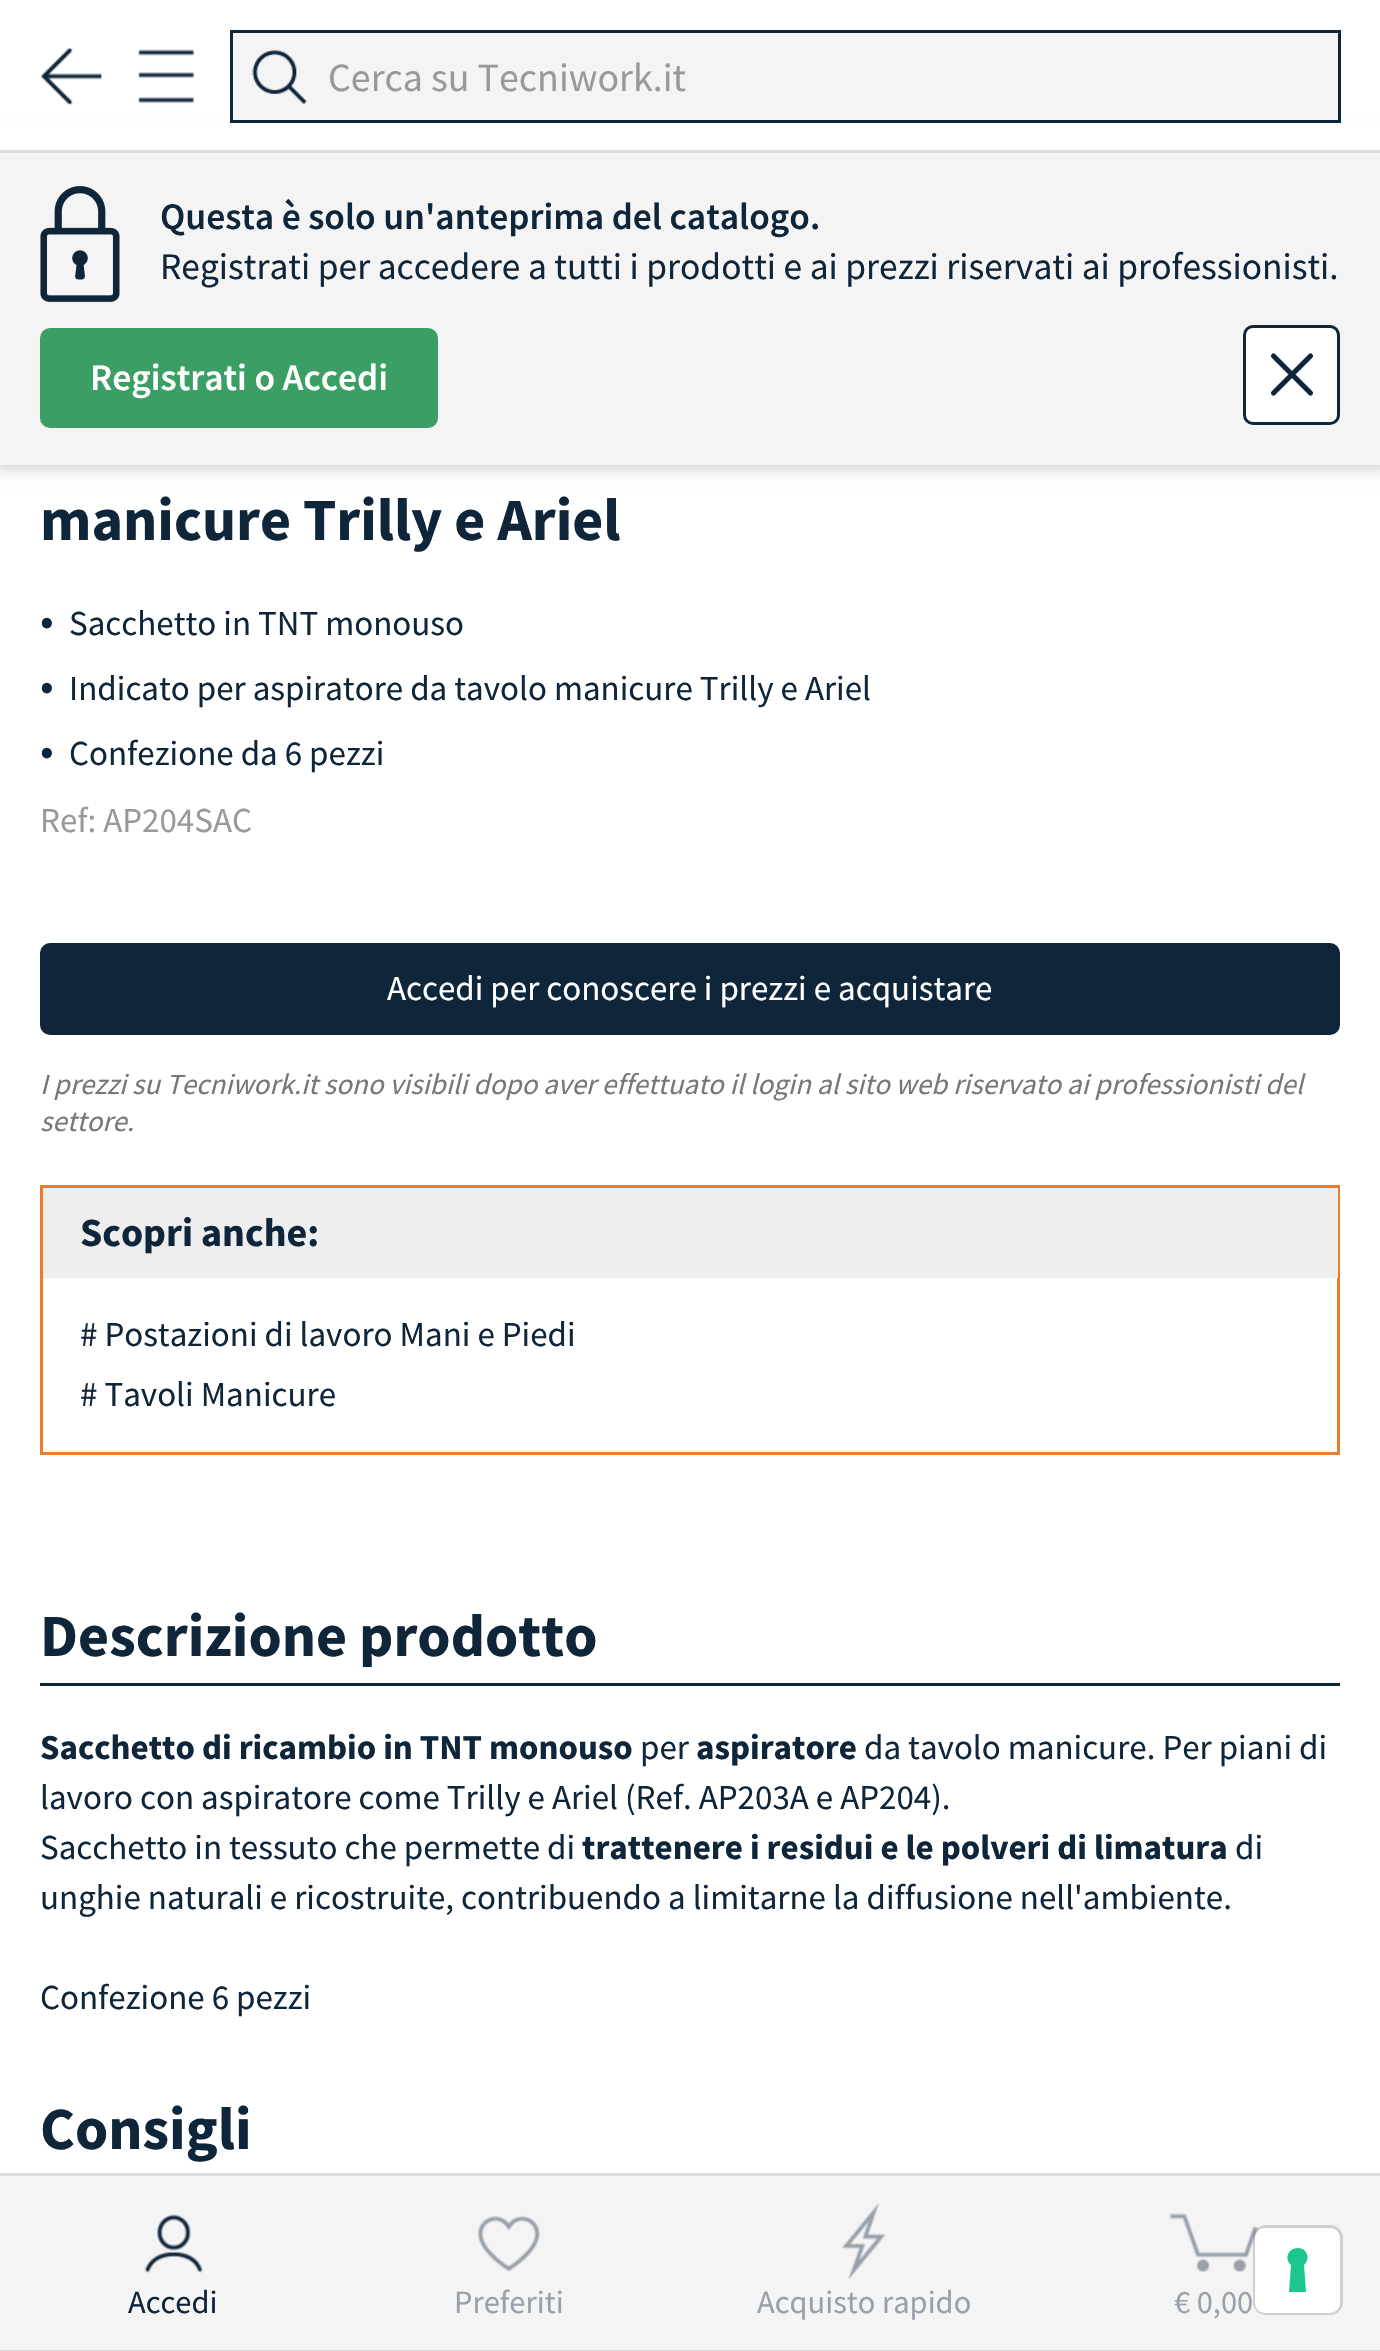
void draw(SkCanvas* canvas) {
    SkPaint paint;
    paint.setAntiAlias(true);
    auto face = [&](const char* family, int weight, float size, bool italic = false) {
        SkFontStyle style(weight, SkFontStyle::kNormal_Width,
            italic ? SkFontStyle::kItalic_Slant : SkFontStyle::kUpright_Slant);
        SkFont result(fontMgr->matchFamilyStyle(family, style), size);
        result.setSubpixel(true);
        return result;
    };
    auto write = [&](const char* s, float x, float y, const SkFont& font, SkColor color) {
        SkPaint ink(SkColor4f::FromColor(color));
        ink.setAntiAlias(true);
        canvas->drawString(s, x, y, font, ink);
    };
    auto block = [&](float x, float y, float w, float h, SkColor color) {
        SkPaint ink(SkColor4f::FromColor(color));
        ink.setAntiAlias(true);
        canvas->drawRect(SkRect::MakeXYWH(x, y, w, h), ink);
    };
    auto card = [&](float x, float y, float w, float h, float radius, SkColor color) {
        SkPaint ink(SkColor4f::FromColor(color));
        ink.setAntiAlias(true);
        canvas->drawRoundRect(SkRect::MakeXYWH(x, y, w, h), radius, radius, ink);
    };
    auto paste = [&](const char* path, float x, float y, float w, float h) {
        auto image = SkImages::DeferredFromEncodedData(SkData::MakeFromFileName(path));
        canvas->drawImageRect(image, SkRect::MakeXYWH(x, y, w, h), SkSamplingOptions());
    };
    canvas->clear(SK_ColorWHITE);
    paint.setColor(SkColorSetARGB(51, 0, 0, 0));
    paint.setMaskFilter(SkMaskFilter::MakeBlur(kNormal_SkBlurStyle, 7.5f));
    canvas->drawRect(SkRect::MakeXYWH(-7, 140, 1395, 328), paint);
    paint.setMaskFilter(nullptr);
    block(0, 128, 1380, 22, SK_ColorWHITE);
    block(0, 150, 1380, 3, SkColorSetRGB(221, 221, 221));
    paste("pic1.png", 41, 48, 61, 57);
    paste("pic2.png", 138, 49, 56, 55);
    block(230, 30, 1110, 3, SkColorSetRGB(15, 37, 58));
    block(1338, 30, 3, 93, SkColorSetRGB(15, 37, 58));
    block(230, 120, 1110, 3, SkColorSetRGB(15, 37, 58));
    block(230, 30, 3, 93, SkColorSetRGB(15, 37, 58));
    block(233, 33, 1105, 87, SkColorSetRGB(244, 244, 244));
    paste("pic3.png", 252, 49, 55, 55);
    auto kFont1 = face("Source Sans Pro", 400, 40);
    write("Cerca su Tecniwork.it", 328, 91, kFont1, SkColorSetRGB(153, 153, 153));
    block(0, 2176, 1380, 174, SkColorSetRGB(244, 244, 244));
    block(0, 2173, 1380, 3, SkColorSetRGB(221, 221, 221));
    block(0, 2350, 1380, 1, SkColorSetRGB(221, 221, 221));
    paste("pic4.png", 144, 2214, 59, 59);
    auto kFont2 = face("Source Sans Pro", 400, 32.5f);
    write("Accedi", 128, 2313, kFont2, SkColorSetRGB(15, 37, 58));
    paste("pic5.png", 477, 2215, 64, 57);
    write("Preferiti", 454, 2313, kFont2, SkColorSetRGB(152, 161, 170));
    paste("pic6.png", 842, 2203, 44, 76);
    write("Acquisto rapido", 757, 2313, kFont2, SkColorSetRGB(152, 161, 170));
    paste("pic7.png", 1169, 2213, 89, 59);
    write("€ 0,00", 1174, 2313, kFont2, SkColorSetRGB(152, 161, 170));
    block(0, 153, 1380, 312, SkColorSetRGB(244, 244, 244));
    paste("pic8.png", 40, 186, 80, 116);
    auto kFont3 = face("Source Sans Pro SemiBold", 600, 37.5f);
    write("Questa è solo un'anteprima del catalogo.", 160, 229, kFont3, SkColorSetRGB(15, 37, 58));
    auto kFont4 = face("Source Sans Pro", 400, 37.5f);
    write("Registrati per accedere a tutti i prodotti e ai prezzi riservati ai professionisti.", 160, 279, kFont4, SkColorSetRGB(15, 37, 58));
    card(40, 328, 398, 100, 10, SkColorSetRGB(59, 159, 101));
    write("Registrati o Accedi", 90, 390, kFont3, SK_ColorWHITE);
    paint.setColor(SK_ColorWHITE);
    canvas->drawRoundRect(SkRect::MakeXYWH(1244.5f, 326.5f, 94, 97), 8.5f, 8.5f, paint);
    paint.setStyle(SkPaint::kStroke_Style);
    paint.setStrokeWidth(3);
    paint.setColor(SkColorSetRGB(15, 37, 58));
    canvas->drawRoundRect(SkRect::MakeXYWH(1244.5f, 326.5f, 94, 97), 8.5f, 8.5f, paint);
    paint.setStrokeWidth(5.2f);
    paint.setStrokeCap(SkPaint::kRound_Cap);
    canvas->drawPath(SkPathBuilder().moveTo(1273.5f, 356).lineTo(1310.5f, 393).moveTo(1273.5f, 393).lineTo(1310.5f, 356).detach(), paint);
    auto kFont5 = face("Source Sans Pro", 700, 60);
    write("manicure Trilly e Ariel", 40, 540, kFont5, SkColorSetRGB(15, 37, 58));
    auto kFont6 = face("Source Sans Pro", 400, 45);
    write("•", 40, 635, kFont6, SkColorSetRGB(15, 37, 58));
    auto kFont7 = face("Source Sans Pro", 400, 35);
    write("Sacchetto in TNT monouso", 69, 635, kFont7, SkColorSetRGB(15, 37, 58));
    write("•", 40, 700, kFont6, SkColorSetRGB(15, 37, 58));
    write("Indicato per aspiratore da tavolo manicure Trilly e Ariel", 69, 700, kFont7, SkColorSetRGB(15, 37, 58));
    write("•", 40, 765, kFont6, SkColorSetRGB(15, 37, 58));
    write("Confezione da 6 pezzi", 69, 765, kFont7, SkColorSetRGB(15, 37, 58));
    write("Ref: AP204SAC", 40, 832, kFont7, SkColorSetRGB(153, 153, 153));
    card(40, 943, 1300, 92, 10, SkColorSetRGB(15, 37, 58));
    write("Accedi per conoscere i prezzi e acquistare", 387, 1000, kFont7, SK_ColorWHITE);
    auto kFont8 = face("Source Sans Pro", 400, 29.15f, true);
    write("I prezzi su Tecniwork.it sono visibili dopo aver effettuato il login al sito web riservato ai professionisti del", 40, 1094, kFont8, SkColorSetRGB(119, 119, 119));
    write("settore.", 40, 1131, kFont8, SkColorSetRGB(119, 119, 119));
    paint.setStrokeWidth(3);
    paint.setStrokeCap(SkPaint::kButt_Cap);
    paint.setColor(SkColorSetRGB(234, 125, 45));
    canvas->drawRect(SkRect::MakeXYWH(41.5f, 1186.5f, 1297, 267), paint);
    block(43, 1188, 1295, 90, SkColorSetRGB(238, 238, 238));
    auto kFont9 = face("Source Sans Pro", 700, 40);
    write("Scopri anche:", 80, 1246, kFont9, SkColorSetRGB(15, 37, 58));
    write("# Postazioni di lavoro Mani e Piedi", 80, 1346, kFont7, SkColorSetRGB(15, 37, 58));
    write("# Tavoli Manicure", 80, 1406, kFont7, SkColorSetRGB(15, 37, 58));
    block(40, 1683, 1300, 3, SkColorSetRGB(15, 37, 58));
    write("Descrizione prodotto", 40, 1656, kFont5, SkColorSetRGB(15, 37, 58));
    auto kFont10 = face("Source Sans Pro", 700, 35);
    write("Sacchetto di ricambio in TNT monouso", 40, 1759, kFont10, SkColorSetRGB(15, 37, 58));
    write("per", 640, 1759, kFont7, SkColorSetRGB(15, 37, 58));
    write("aspiratore", 696, 1759, kFont10, SkColorSetRGB(15, 37, 58));
    write("da tavolo manicure. Per piani di", 864, 1759, kFont7, SkColorSetRGB(15, 37, 58));
    write("lavoro con aspiratore come Trilly e Ariel (Ref. AP203A e AP204).", 40, 1809, kFont7, SkColorSetRGB(15, 37, 58));
    write("Sacchetto in tessuto che permette di", 40, 1859, kFont7, SkColorSetRGB(15, 37, 58));
    write("trattenere i residui e le polveri di limatura", 582, 1859, kFont10, SkColorSetRGB(15, 37, 58));
    write("di", 1235, 1859, kFont7, SkColorSetRGB(15, 37, 58));
    write("unghie naturali e ricostruite, contribuendo a limitarne la diffusione nell'ambiente.", 40, 1909, kFont7, SkColorSetRGB(15, 37, 58));
    write("Confezione 6 pezzi", 40, 2009, kFont7, SkColorSetRGB(15, 37, 58));
    write("Consigli", 40, 2149, kFont5, SkColorSetRGB(15, 37, 58));
    paint.setColor(SkColorSetARGB(38, 0, 0, 0));
    canvas->drawRoundRect(SkRect::MakeXYWH(1254.5f, 2226.5f, 87, 87), 11.5f, 11.5f, paint);
    card(1255, 2228, 85, 85, 10, SK_ColorWHITE);
    paint.setStyle(SkPaint::kFill_Style);
    paint.setColor(SkColorSetRGB(28, 198, 145));
    canvas->drawPath(SkPathBuilder(SkPathFillType::kEvenOdd).moveTo(1298, 2248).cubicTo(1307, 2248, 1311, 2259, 1304, 2265).lineTo(1306, 2292).lineTo(1289, 2292).lineTo(1291, 2265).cubicTo(1284, 2259, 1288, 2248, 1298, 2248).close().detach(), paint);
}
